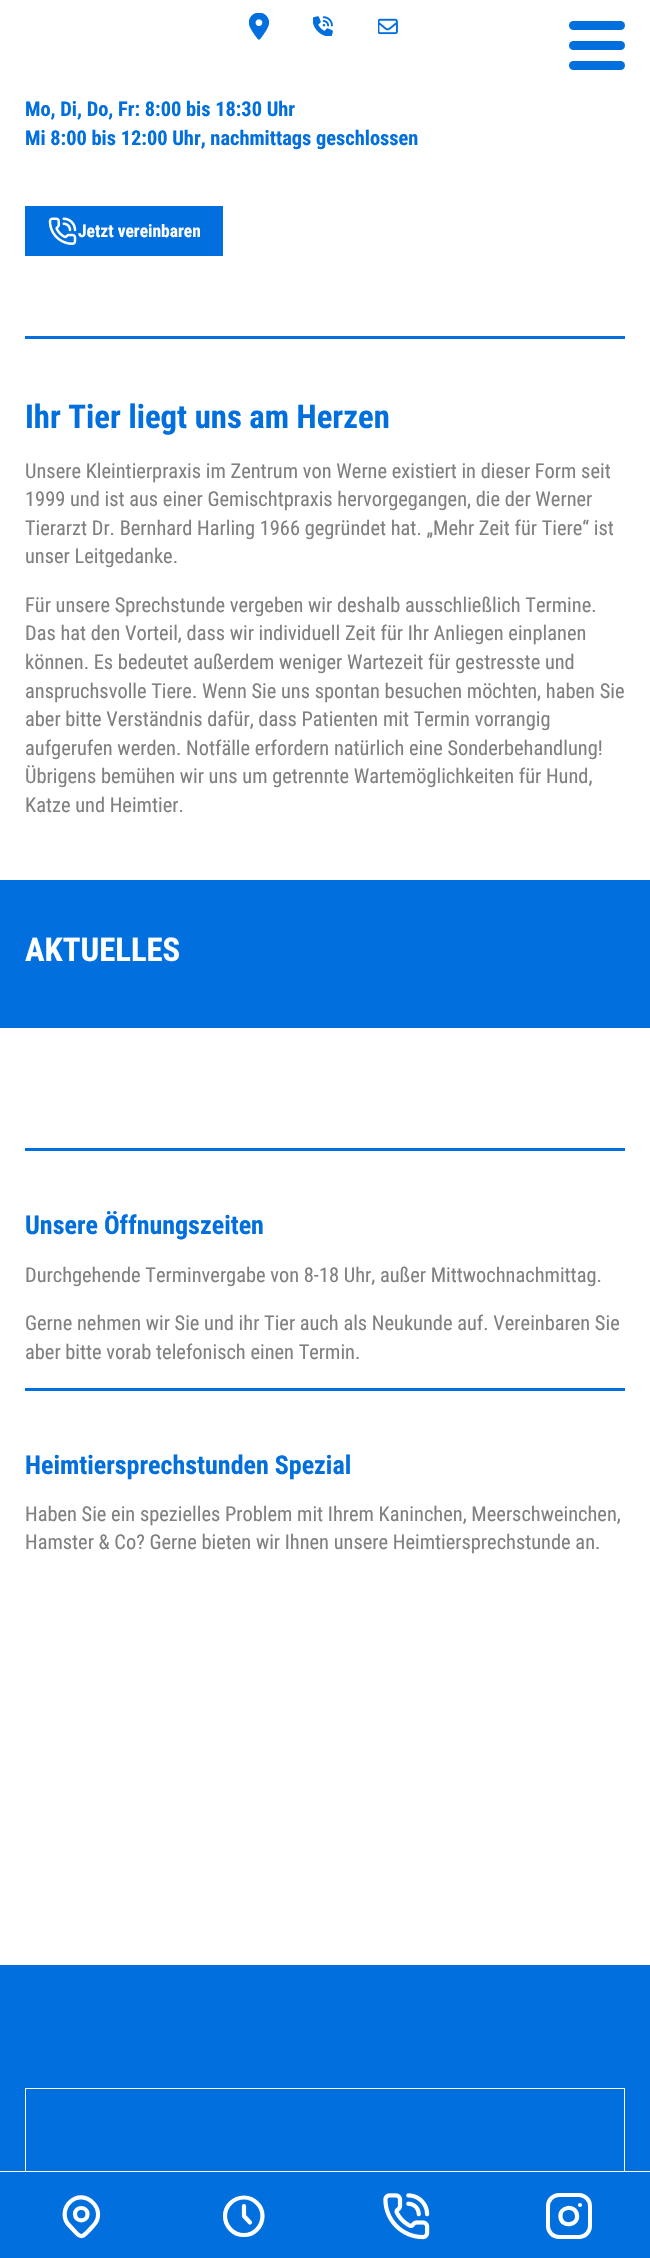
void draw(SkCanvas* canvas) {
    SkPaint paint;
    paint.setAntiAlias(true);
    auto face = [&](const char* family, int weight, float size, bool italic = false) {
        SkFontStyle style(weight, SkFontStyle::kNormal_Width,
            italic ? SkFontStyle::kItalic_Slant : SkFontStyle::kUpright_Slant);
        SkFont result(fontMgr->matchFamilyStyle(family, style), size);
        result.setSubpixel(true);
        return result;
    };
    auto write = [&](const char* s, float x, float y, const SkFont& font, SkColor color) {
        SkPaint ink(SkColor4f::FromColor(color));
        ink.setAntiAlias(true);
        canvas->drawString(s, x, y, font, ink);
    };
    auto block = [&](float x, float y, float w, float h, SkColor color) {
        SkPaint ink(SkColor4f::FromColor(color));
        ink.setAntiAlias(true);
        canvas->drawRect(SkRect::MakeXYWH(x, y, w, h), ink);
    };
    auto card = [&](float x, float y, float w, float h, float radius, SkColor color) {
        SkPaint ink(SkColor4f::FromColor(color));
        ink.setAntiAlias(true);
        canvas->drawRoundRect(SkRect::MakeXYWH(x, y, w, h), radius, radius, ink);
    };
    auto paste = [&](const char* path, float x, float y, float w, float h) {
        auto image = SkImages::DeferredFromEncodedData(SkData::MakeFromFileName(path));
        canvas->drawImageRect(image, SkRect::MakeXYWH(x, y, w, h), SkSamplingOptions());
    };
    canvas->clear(SK_ColorWHITE);
    paste("pic1.png", 249, 13, 20, 27);
    paste("pic2.png", 313, 16, 20, 20);
    paste("pic3.png", 378, 18, 20, 17);
    card(569, 21, 56, 9, 4.5f, SkColorSetRGB(1, 111, 221));
    card(569, 41, 56, 9, 4.5f, SkColorSetRGB(1, 111, 221));
    card(569, 61, 56, 9, 4.5f, SkColorSetRGB(1, 111, 221));
    auto kFont1 = face("Roboto Condensed", 700, 20.4f);
    write("Mo, Di, Do, Fr: 8:00 bis 18:30 Uhr", 25, 116, kFont1, SkColorSetRGB(1, 111, 221));
    write("Mi 8:00 bis 12:00 Uhr, nachmittags geschlossen", 25, 145, kFont1, SkColorSetRGB(1, 111, 221));
    block(25, 206, 198, 50, SkColorSetRGB(1, 111, 221));
    paste("pic4.png", 48, 217, 29, 28);
    auto kFont2 = face("Roboto Condensed", 700, 17.5f);
    write("Jetzt vereinbaren", 78, 237, kFont2, SK_ColorWHITE);
    block(25, 336, 600, 3, SkColorSetRGB(1, 111, 221));
    auto kFont3 = face("Roboto Condensed", 700, 32.75f);
    write("Ihr Tier liegt uns am Herzen", 25, 428, kFont3, SkColorSetRGB(1, 111, 221));
    auto kFont4 = face("Roboto Condensed", 400, 20.4f);
    write("Unsere Kleintierpraxis im Zentrum von Werne existiert in dieser Form seit", 25, 478, kFont4, SkColorSetRGB(128, 128, 128));
    write("1999 und ist aus einer Gemischtpraxis hervorgegangen, die der Werner", 25, 506, kFont4, SkColorSetRGB(128, 128, 128));
    write("Tierarzt Dr. Bernhard Harling 1966 gegründet hat. „Mehr Zeit für Tiere“ ist", 25, 535, kFont4, SkColorSetRGB(128, 128, 128));
    write("unser Leitgedanke.", 25, 563, kFont4, SkColorSetRGB(128, 128, 128));
    write("Für unsere Sprechstunde vergeben wir deshalb ausschließlich Termine.", 25, 612, kFont4, SkColorSetRGB(128, 128, 128));
    write("Das hat den Vorteil, dass wir individuell Zeit für Ihr Anliegen einplanen", 25, 640, kFont4, SkColorSetRGB(128, 128, 128));
    write("können. Es bedeutet außerdem weniger Wartezeit für gestresste und", 25, 669, kFont4, SkColorSetRGB(128, 128, 128));
    write("anspruchsvolle Tiere. Wenn Sie uns spontan besuchen möchten, haben Sie", 25, 698, kFont4, SkColorSetRGB(128, 128, 128));
    write("aber bitte Verständnis dafür, dass Patienten mit Termin vorrangig", 25, 726, kFont4, SkColorSetRGB(128, 128, 128));
    write("aufgerufen werden. Notfälle erfordern natürlich eine Sonderbehandlung!", 25, 755, kFont4, SkColorSetRGB(128, 128, 128));
    write("Übrigens bemühen wir uns um getrennte Wartemöglichkeiten für Hund,", 25, 783, kFont4, SkColorSetRGB(128, 128, 128));
    write("Katze und Heimtier.", 25, 812, kFont4, SkColorSetRGB(128, 128, 128));
    block(0, 880, 650, 148, SkColorSetRGB(1, 111, 221));
    write("AKTUELLES", 25, 961, kFont3, SK_ColorWHITE);
    block(25, 1148, 600, 3, SkColorSetRGB(1, 111, 221));
    auto kFont5 = face("Roboto Condensed", 700, 26);
    write("Unsere Öffnungszeiten", 25, 1234, kFont5, SkColorSetRGB(1, 111, 221));
    write("Durchgehende Terminvergabe von 8-18 Uhr, außer Mittwochnachmittag.", 25, 1282, kFont4, SkColorSetRGB(128, 128, 128));
    write("Gerne nehmen wir Sie und ihr Tier auch als Neukunde auf. Vereinbaren Sie", 25, 1330, kFont4, SkColorSetRGB(128, 128, 128));
    write("aber bitte vorab telefonisch einen Termin.", 25, 1359, kFont4, SkColorSetRGB(128, 128, 128));
    block(25, 1388, 600, 3, SkColorSetRGB(1, 111, 221));
    write("Heimtiersprechstunden Spezial", 25, 1474, kFont5, SkColorSetRGB(1, 111, 221));
    write("Haben Sie ein spezielles Problem mit Ihrem Kaninchen, Meerschweinchen,", 25, 1521, kFont4, SkColorSetRGB(128, 128, 128));
    write("Hamster & Co? Gerne bieten wir Ihnen unsere Heimtiersprechstunde an.", 25, 1549, kFont4, SkColorSetRGB(128, 128, 128));
    block(0, 1965, 650, 206, SkColorSetRGB(1, 111, 221));
    paint.setStyle(SkPaint::kStroke_Style);
    paint.setStrokeWidth(1);
    paint.setColor(SK_ColorWHITE);
    canvas->drawRect(SkRect::MakeXYWH(25.5f, 2088.5f, 599, 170), paint);
    block(0, 2172, 650, 86, SkColorSetRGB(1, 111, 221));
    paint.setStrokeWidth(4.2f);
    paint.setStrokeCap(SkPaint::kRound_Cap);
    paint.setStrokeJoin(SkPaint::kRound_Join);
    canvas->drawPath(SkPathBuilder().moveTo(75, 2214).cubicTo(75, 2222.5f, 87.5f, 2222.5f, 87.5f, 2214).cubicTo(87.5f, 2206, 75, 2206, 75, 2214).moveTo(93, 2226).cubicTo(91, 2228, 85, 2235.5f, 82, 2236).cubicTo(78.5f, 2236.5f, 76, 2232.5f, 74, 2230.5f).lineTo(67.5f, 2223.5f).cubicTo(63, 2217, 64, 2208, 69.5f, 2202.5f).cubicTo(85, 2187, 108.5f, 2210.5f, 93, 2226).close().detach(), paint);
    canvas->drawPath(SkPathBuilder().moveTo(225, 2216).cubicTo(225, 2226.5f, 233.5f, 2235, 244, 2235).cubicTo(254, 2235, 262.5f, 2226.5f, 262.5f, 2216).cubicTo(262.5f, 2206, 254, 2197.5f, 244, 2197.5f).cubicTo(233.5f, 2197.5f, 225, 2206, 225, 2216).moveTo(244, 2206).lineTo(244, 2216).lineTo(250, 2222.5f).detach(), paint);
    paste("pic5.png", 383, 2193, 47, 47);
    paint.setStrokeWidth(4);
    paint.setStrokeCap(SkPaint::kButt_Cap);
    paint.setStrokeJoin(SkPaint::kMiter_Join);
    canvas->drawRoundRect(SkRect::MakeXYWH(548, 2195, 42, 42), 11, 11, paint);
    paint.setStrokeWidth(4.2f);
    paint.setStrokeCap(SkPaint::kRound_Cap);
    paint.setStrokeJoin(SkPaint::kRound_Join);
    canvas->drawPath(SkPathBuilder().moveTo(577, 2215).cubicTo(578.5f, 2225.5f, 562.5f, 2228, 560.5f, 2217.5f).cubicTo(559, 2206.5f, 575.5f, 2204, 577, 2215).close().moveTo(580, 2205).lineTo(580, 2205).detach(), paint);
}
